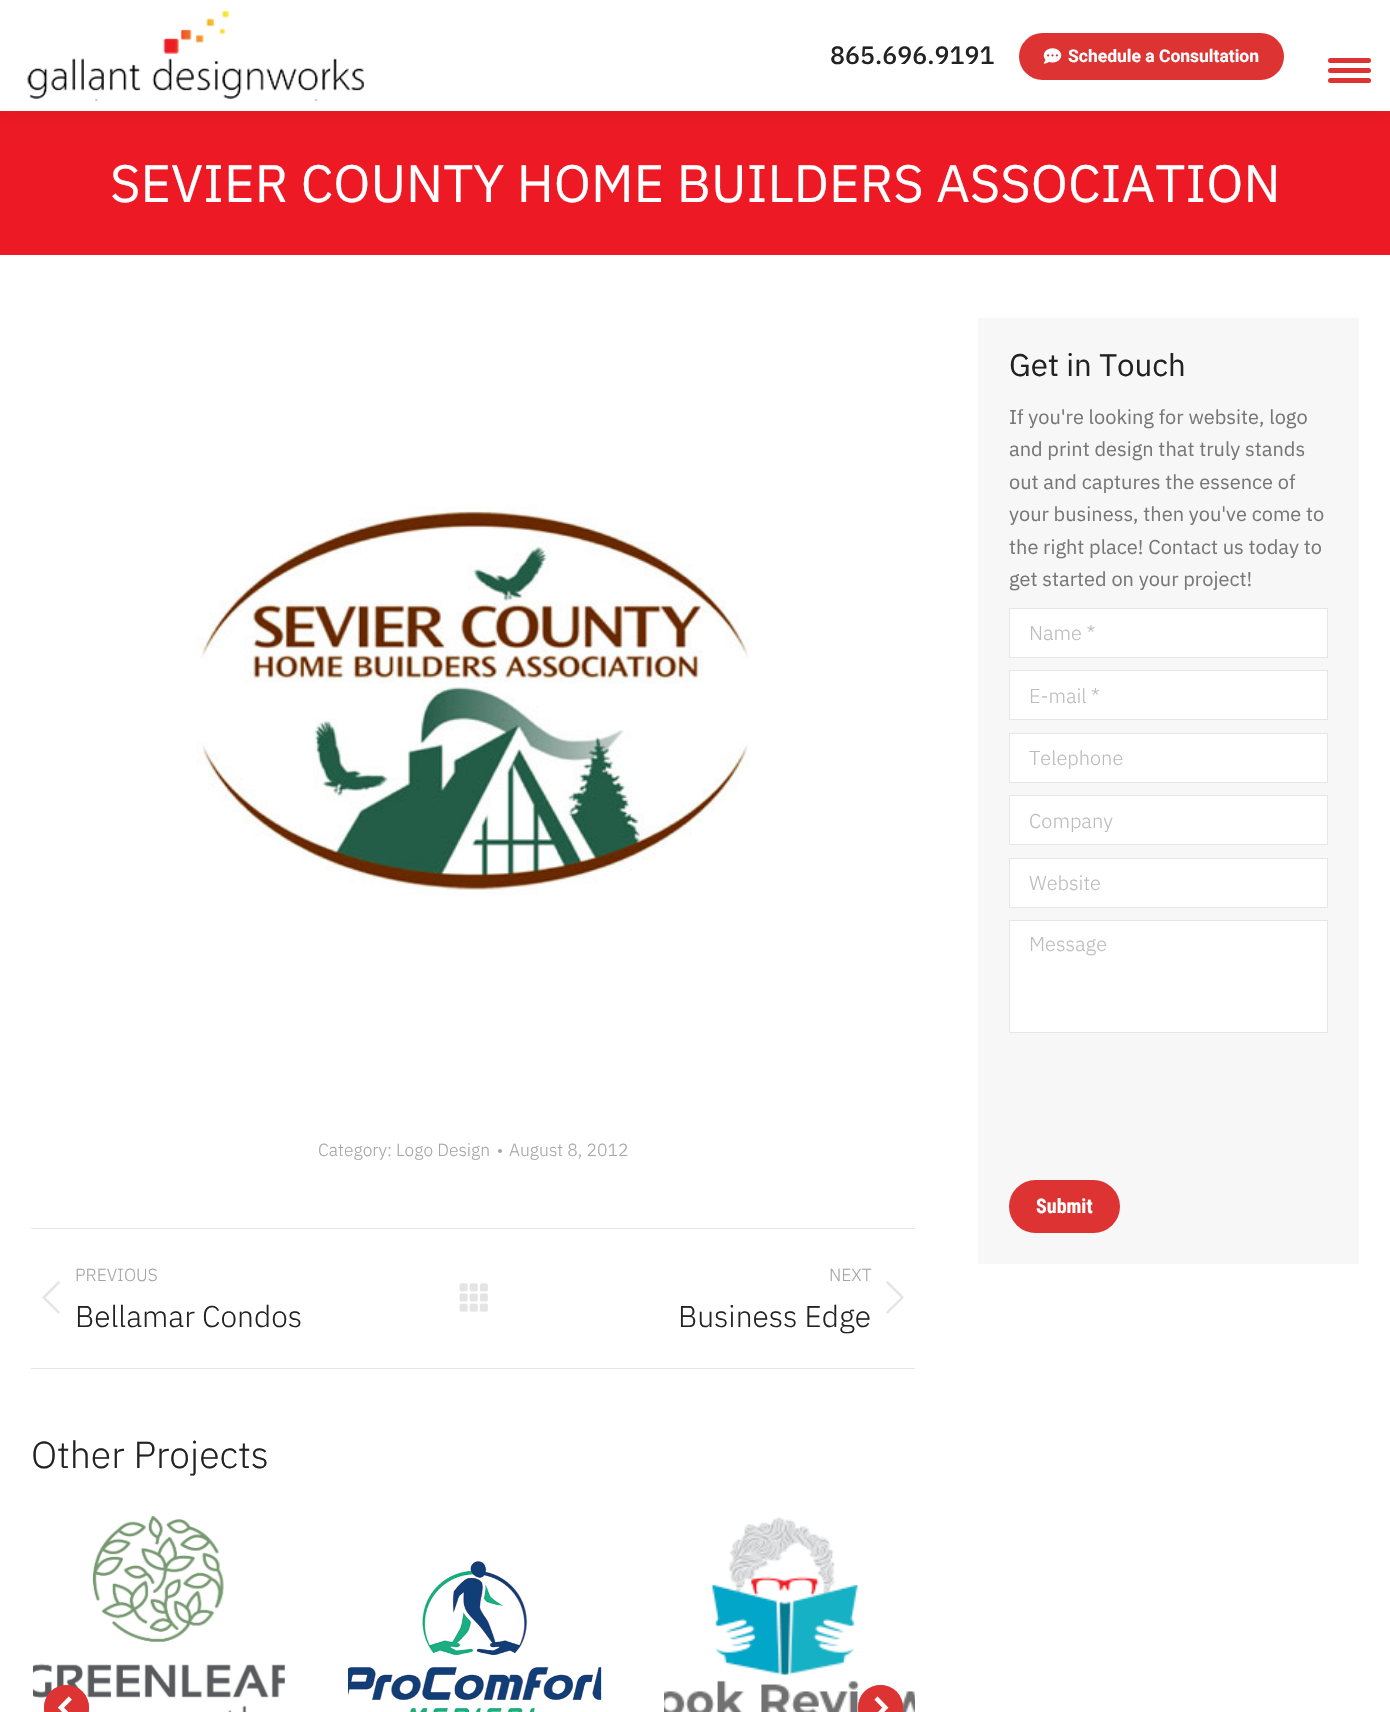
void draw(SkCanvas* canvas) {
    SkPaint paint;
    paint.setAntiAlias(true);
    auto face = [&](const char* family, int weight, float size, bool italic = false) {
        SkFontStyle style(weight, SkFontStyle::kNormal_Width,
            italic ? SkFontStyle::kItalic_Slant : SkFontStyle::kUpright_Slant);
        SkFont result(fontMgr->matchFamilyStyle(family, style), size);
        result.setSubpixel(true);
        return result;
    };
    auto write = [&](const char* s, float x, float y, const SkFont& font, SkColor color) {
        SkPaint ink(SkColor4f::FromColor(color));
        ink.setAntiAlias(true);
        canvas->drawString(s, x, y, font, ink);
    };
    auto block = [&](float x, float y, float w, float h, SkColor color) {
        SkPaint ink(SkColor4f::FromColor(color));
        ink.setAntiAlias(true);
        canvas->drawRect(SkRect::MakeXYWH(x, y, w, h), ink);
    };
    auto card = [&](float x, float y, float w, float h, float radius, SkColor color) {
        SkPaint ink(SkColor4f::FromColor(color));
        ink.setAntiAlias(true);
        canvas->drawRoundRect(SkRect::MakeXYWH(x, y, w, h), radius, radius, ink);
    };
    auto paste = [&](const char* path, float x, float y, float w, float h) {
        auto image = SkImages::DeferredFromEncodedData(SkData::MakeFromFileName(path));
        canvas->drawImageRect(image, SkRect::MakeXYWH(x, y, w, h), SkSamplingOptions());
    };
    canvas->clear(SK_ColorWHITE);
    block(0, 111, 1390, 144, SkColorSetRGB(237, 26, 37));
    paint.setColor(SkColorSetARGB(18, 0, 0, 0));
    paint.setMaskFilter(SkMaskFilter::MakeBlur(kNormal_SkBlurStyle, 9.5f));
    canvas->drawRect(SkRect::MakeXYWH(-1, -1, 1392, 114), paint);
    paint.setMaskFilter(nullptr);
    block(0, 0, 1390, 111, SK_ColorWHITE);
    paste("pic1.png", 27, 11, 337, 90);
    auto kFont1 = face("IBM Plex Sans", 500, 25);
    write("865.696.9191", 830, 64, kFont1, SkColorSetRGB(34, 34, 34));
    card(1019, 33, 265, 47, 23.5f, SkColorSetRGB(221, 51, 51));
    paste("pic2.png", 1043, 48, 19, 16);
    auto kFont2 = face("Roboto", 700, 17.5f);
    write("Schedule a Consultation", 1068, 62, kFont2, SK_ColorWHITE);
    card(1328, 58, 43, 5, 2.5f, SkColorSetRGB(221, 51, 51));
    card(1328, 68, 43, 5, 2.5f, SkColorSetRGB(221, 51, 51));
    card(1328, 78, 43, 5, 2.5f, SkColorSetRGB(221, 51, 51));
    auto kFont3 = face("IBM Plex Sans", 400, 52.5f);
    write("SEVIER COUNTY HOME BUILDERS ASSOCIATION", 110, 202, kFont3, SK_ColorWHITE);
    block(978, 318, 381, 946, SkColorSetRGB(247, 247, 247));
    auto kFont4 = face("IBM Plex Sans", 400, 31.25f);
    write("Get in Touch", 1009, 376, kFont4, SkColorSetRGB(34, 34, 34));
    auto kFont5 = face("IBM Plex Sans", 400, 20);
    write("If you're looking for website, logo", 1009, 424, kFont5, SkColorSetRGB(119, 119, 119));
    write("and print design that truly stands", 1009, 456, kFont5, SkColorSetRGB(119, 119, 119));
    write("out and captures the essence of", 1009, 489, kFont5, SkColorSetRGB(119, 119, 119));
    write("your business, then you've come to", 1009, 521, kFont5, SkColorSetRGB(119, 119, 119));
    write("the right place! Contact us today to", 1009, 554, kFont5, SkColorSetRGB(119, 119, 119));
    write("get started on your project!", 1009, 586, kFont5, SkColorSetRGB(119, 119, 119));
    paint.setColor(SK_ColorWHITE);
    canvas->drawRect(SkRect::MakeXYWH(1009.5f, 608.5f, 318, 49), paint);
    paint.setStyle(SkPaint::kStroke_Style);
    paint.setStrokeWidth(1);
    paint.setColor(SkColorSetRGB(230, 230, 230));
    canvas->drawRect(SkRect::MakeXYWH(1009.5f, 608.5f, 318, 49), paint);
    auto kFont6 = face("IBM Plex Sans", 300, 20);
    write("Name *", 1029, 640, kFont6, SkColorSetRGB(187, 187, 187));
    paint.setStyle(SkPaint::kFill_Style);
    paint.setColor(SK_ColorWHITE);
    canvas->drawRect(SkRect::MakeXYWH(1009.5f, 670.5f, 318, 49), paint);
    paint.setStyle(SkPaint::kStroke_Style);
    paint.setColor(SkColorSetRGB(230, 230, 230));
    canvas->drawRect(SkRect::MakeXYWH(1009.5f, 670.5f, 318, 49), paint);
    write("E-mail *", 1029, 703, kFont6, SkColorSetRGB(187, 187, 187));
    paint.setStyle(SkPaint::kFill_Style);
    paint.setColor(SK_ColorWHITE);
    canvas->drawRect(SkRect::MakeXYWH(1009.5f, 733.5f, 318, 49), paint);
    paint.setStyle(SkPaint::kStroke_Style);
    paint.setColor(SkColorSetRGB(230, 230, 230));
    canvas->drawRect(SkRect::MakeXYWH(1009.5f, 733.5f, 318, 49), paint);
    write("Telephone", 1029, 765, kFont6, SkColorSetRGB(187, 187, 187));
    paint.setStyle(SkPaint::kFill_Style);
    paint.setColor(SK_ColorWHITE);
    canvas->drawRect(SkRect::MakeXYWH(1009.5f, 795.5f, 318, 49), paint);
    paint.setStyle(SkPaint::kStroke_Style);
    paint.setColor(SkColorSetRGB(230, 230, 230));
    canvas->drawRect(SkRect::MakeXYWH(1009.5f, 795.5f, 318, 49), paint);
    write("Company", 1029, 828, kFont6, SkColorSetRGB(187, 187, 187));
    paint.setStyle(SkPaint::kFill_Style);
    paint.setColor(SK_ColorWHITE);
    canvas->drawRect(SkRect::MakeXYWH(1009.5f, 858.5f, 318, 49), paint);
    paint.setStyle(SkPaint::kStroke_Style);
    paint.setColor(SkColorSetRGB(230, 230, 230));
    canvas->drawRect(SkRect::MakeXYWH(1009.5f, 858.5f, 318, 49), paint);
    write("Website", 1029, 890, kFont6, SkColorSetRGB(187, 187, 187));
    paint.setStyle(SkPaint::kFill_Style);
    paint.setColor(SK_ColorWHITE);
    canvas->drawRect(SkRect::MakeXYWH(1009.5f, 920.5f, 318, 112), paint);
    paint.setStyle(SkPaint::kStroke_Style);
    paint.setColor(SkColorSetRGB(230, 230, 230));
    canvas->drawRect(SkRect::MakeXYWH(1009.5f, 920.5f, 318, 112), paint);
    write("Message", 1029, 951, kFont6, SkColorSetRGB(187, 187, 187));
    card(1009, 1180, 111, 53, 26.5f, SkColorSetRGB(221, 51, 51));
    auto kFont7 = face("Roboto Condensed", 700, 20);
    write("Submit", 1036, 1213, kFont7, SK_ColorWHITE);
    paste("pic3.png", 196, 506, 554, 389);
    auto kFont8 = face("IBM Plex Sans", 300, 17.5f);
    write("Category: Logo Design", 318, 1156, kFont8, SkColorSetRGB(165, 165, 165));
    paint.setStyle(SkPaint::kFill_Style);
    paint.setColor(SkColorSetRGB(165, 165, 165));
    canvas->drawCircle(500, 1151, 2, paint);
    write("August 8, 2012", 509, 1156, kFont8, SkColorSetRGB(165, 165, 165));
    block(31, 1228, 884, 1, SkColorSetRGB(230, 230, 230));
    block(31, 1368, 884, 1, SkColorSetRGB(230, 230, 230));
    write("PREVIOUS", 75, 1281, kFont8, SkColorSetRGB(165, 165, 165));
    paste("pic4.png", 42, 1281, 18, 33);
    auto kFont9 = face("IBM Plex Sans", 300, 30);
    write("Bellamar Condos", 75, 1327, kFont9, SkColorSetRGB(34, 34, 34));
    paste("pic5.png", 459, 1283, 29, 29);
    write("NEXT", 829, 1281, kFont8, SkColorSetRGB(165, 165, 165));
    paste("pic6.png", 886, 1281, 18, 33);
    write("Business Edge", 678, 1327, kFont9, SkColorSetRGB(34, 34, 34));
    auto kFont10 = face("IBM Plex Sans", 300, 37.5f);
    write("Other Projects", 31, 1468, kFont10, SkColorSetRGB(34, 34, 34));
    paste("pic7.png", 33, 1516, 252, 196);
    paste("pic8.png", 348, 1561, 254, 151);
    paste("pic9.png", 664, 1517, 251, 195);
    paint.setColor(SkColorSetRGB(221, 51, 51));
    canvas->drawCircle(66.5f, 1707.5f, 22.5f, paint);
    paint.setColor(SkColorSetARGB(230, 221, 51, 51));
    canvas->drawCircle(66.5f, 1707.5f, 22.5f, paint);
    paste("pic10.png", 57, 1696, 15, 16);
    paint.setColor(SkColorSetRGB(221, 51, 51));
    canvas->drawCircle(880.5f, 1707.5f, 22.5f, paint);
    paint.setColor(SkColorSetARGB(230, 221, 51, 51));
    canvas->drawCircle(880.5f, 1707.5f, 22.5f, paint);
    paste("pic11.png", 874, 1696, 15, 16);
}
